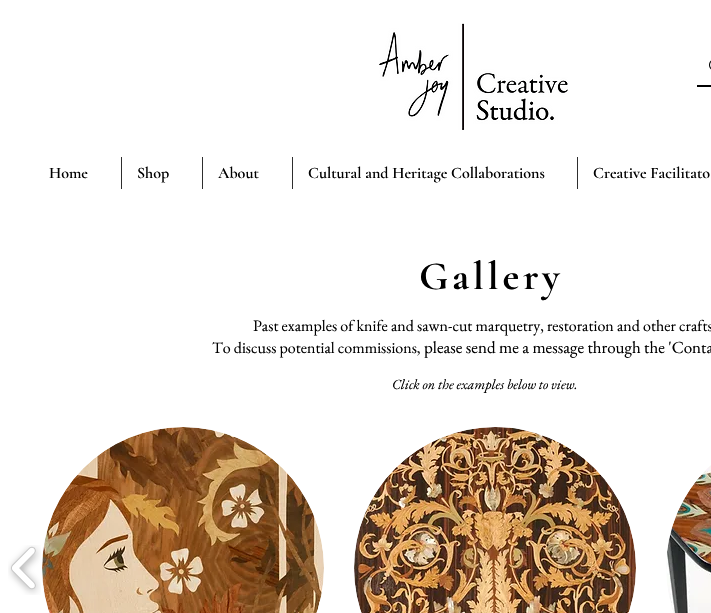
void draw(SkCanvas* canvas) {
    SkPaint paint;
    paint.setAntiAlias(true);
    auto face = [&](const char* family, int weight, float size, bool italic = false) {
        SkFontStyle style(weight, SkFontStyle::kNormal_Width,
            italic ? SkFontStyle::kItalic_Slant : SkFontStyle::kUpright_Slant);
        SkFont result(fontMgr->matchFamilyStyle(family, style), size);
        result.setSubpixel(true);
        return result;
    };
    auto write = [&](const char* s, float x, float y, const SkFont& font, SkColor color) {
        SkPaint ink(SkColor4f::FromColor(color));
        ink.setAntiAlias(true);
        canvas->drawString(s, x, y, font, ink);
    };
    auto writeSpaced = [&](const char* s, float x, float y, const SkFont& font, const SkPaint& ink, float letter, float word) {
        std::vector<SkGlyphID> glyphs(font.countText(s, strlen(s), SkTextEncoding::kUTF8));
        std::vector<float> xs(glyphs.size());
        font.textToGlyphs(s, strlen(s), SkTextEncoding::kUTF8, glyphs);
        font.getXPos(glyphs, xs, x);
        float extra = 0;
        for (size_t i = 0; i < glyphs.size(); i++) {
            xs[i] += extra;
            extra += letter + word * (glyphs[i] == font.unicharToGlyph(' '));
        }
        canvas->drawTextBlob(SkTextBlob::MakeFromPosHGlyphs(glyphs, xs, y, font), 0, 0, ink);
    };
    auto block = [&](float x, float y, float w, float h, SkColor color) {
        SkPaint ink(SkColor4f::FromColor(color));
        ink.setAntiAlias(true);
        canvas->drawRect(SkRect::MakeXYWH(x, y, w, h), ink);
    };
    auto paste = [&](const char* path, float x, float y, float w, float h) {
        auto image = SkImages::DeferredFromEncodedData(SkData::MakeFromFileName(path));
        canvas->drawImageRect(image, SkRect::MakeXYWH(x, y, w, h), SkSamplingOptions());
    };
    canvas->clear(SK_ColorWHITE);
    paste("pic1.png", 379, 23, 189, 107);
    block(697, 85, 14, 2, SK_ColorBLACK);
    paste("pic2.png", 709, 60, 2, 10);
    auto kFont1 = face("Cormorant Garamond", 600, 16);
    write("Home", 49, 178, kFont1, SK_ColorBLACK);
    block(121, 157, 1, 32, SkColorSetRGB(46, 46, 46));
    write("Shop", 137, 178, kFont1, SK_ColorBLACK);
    block(202, 157, 1, 32, SkColorSetRGB(46, 46, 46));
    write("About", 218, 178, kFont1, SK_ColorBLACK);
    block(292, 157, 1, 32, SkColorSetRGB(46, 46, 46));
    write("Cultural and Heritage Collaborations", 308, 178, kFont1, SK_ColorBLACK);
    block(577, 157, 1, 32, SkColorSetRGB(46, 46, 46));
    write("Creative Facilitato", 593, 178, kFont1, SK_ColorBLACK);
    auto kFont2 = face("Cormorant Garamond", 700, 40);
    paint.setColor(SK_ColorBLACK);
    writeSpaced("Gallery", 419, 289, kFont2, paint, 4, 0);
    auto kFont3 = face("EB Garamond", 400, 16);
    write("Past examples of knife and sawn-cut marquetry, restoration and other crafts", 253, 331, kFont3, SK_ColorBLACK);
    write("To discuss potential commissions,", 212, 353, kFont3, SK_ColorBLACK);
    auto kFont4 = face("EB Garamond", 400, 17);
    write("please send me a message through the 'Conta", 424, 353, kFont4, SK_ColorBLACK);
    auto kFont5 = face("EB Garamond", 400, 14, true);
    write("Click on the examples below to view.", 392, 389, kFont5, SK_ColorBLACK);
    paste("pic3.png", 8, 545, 33, 50);
    paste("pic4.png", 42, 427, 282, 186);
    paste("pic5.png", 354, 427, 282, 186);
    paste("pic6.png", 666, 465, 45, 148);
}
